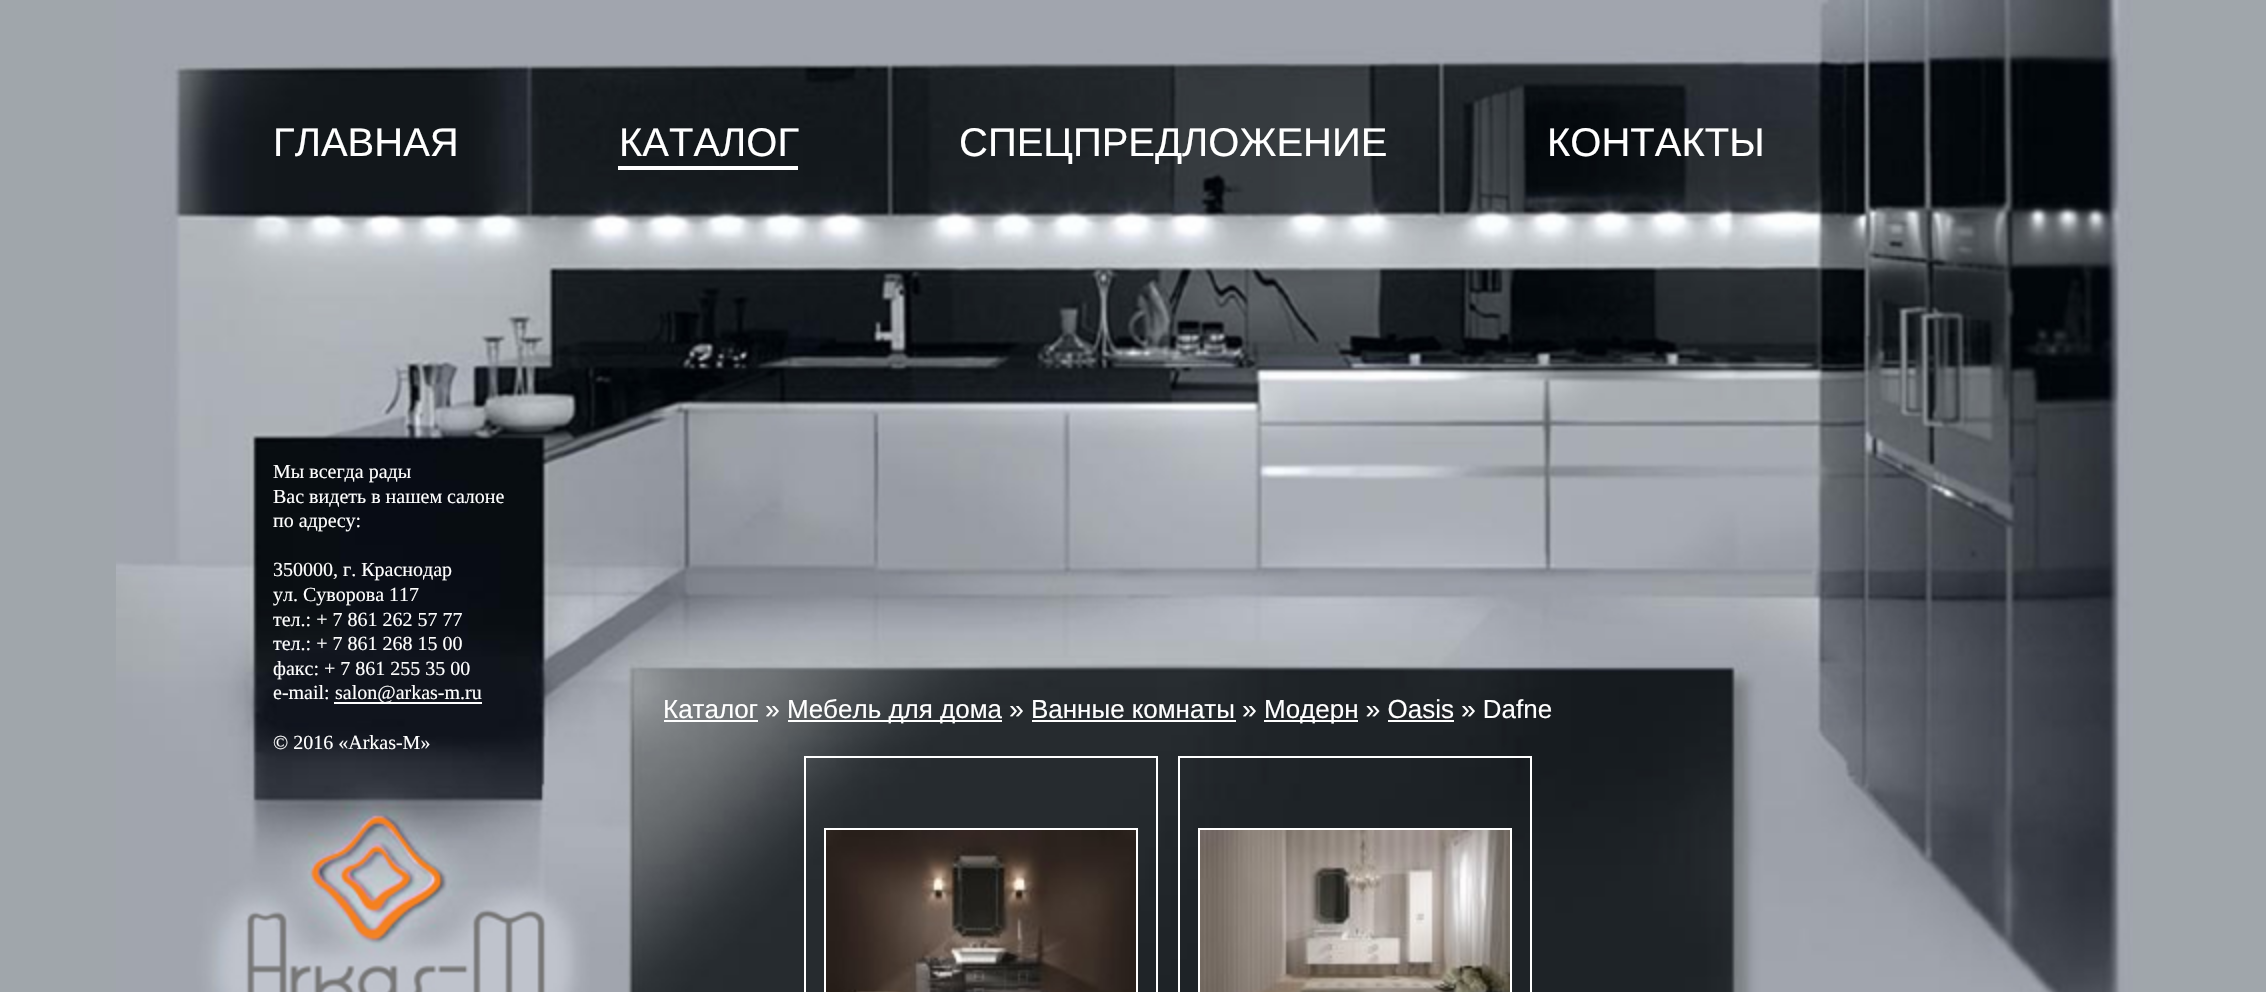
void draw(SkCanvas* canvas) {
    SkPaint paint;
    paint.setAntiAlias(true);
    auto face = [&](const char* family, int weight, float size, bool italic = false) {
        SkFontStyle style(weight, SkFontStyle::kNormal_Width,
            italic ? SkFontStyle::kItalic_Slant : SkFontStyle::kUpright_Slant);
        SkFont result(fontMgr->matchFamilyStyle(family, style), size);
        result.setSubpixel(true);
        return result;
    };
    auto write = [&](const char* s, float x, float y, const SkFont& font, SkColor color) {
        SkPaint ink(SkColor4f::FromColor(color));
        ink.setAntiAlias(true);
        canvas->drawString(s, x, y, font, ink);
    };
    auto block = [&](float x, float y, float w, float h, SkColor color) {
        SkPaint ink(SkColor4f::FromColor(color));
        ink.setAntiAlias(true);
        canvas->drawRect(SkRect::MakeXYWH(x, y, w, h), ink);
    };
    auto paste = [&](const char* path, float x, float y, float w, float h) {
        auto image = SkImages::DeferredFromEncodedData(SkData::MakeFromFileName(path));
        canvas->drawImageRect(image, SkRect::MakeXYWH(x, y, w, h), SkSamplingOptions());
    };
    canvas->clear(SkColorSetRGB(160, 166, 171));
    paste("pic1.png", 116, 0, 2017, 992);
    auto kFont1 = face("Liberation Sans", 400, 40);
    write("ГЛАВНАЯ", 273, 156, kFont1, SK_ColorWHITE);
    block(618, 166, 180, 4, SK_ColorWHITE);
    write("КАТАЛОГ", 619, 156, kFont1, SK_ColorWHITE);
    write("СПЕЦПРЕДЛОЖЕНИЕ", 959, 156, kFont1, SK_ColorWHITE);
    write("КОНТАКТЫ", 1547, 156, kFont1, SK_ColorWHITE);
    auto kFont2 = face("Liberation Serif", 400, 20);
    write("Мы всегда рады", 273, 478, kFont2, SK_ColorWHITE);
    write("Вас видеть в нашем салоне", 273, 503, kFont2, SK_ColorWHITE);
    write("по адресу:", 273, 527, kFont2, SK_ColorWHITE);
    write("350000, г. Краснодар", 273, 576, kFont2, SK_ColorWHITE);
    write("ул. Суворова 117", 273, 601, kFont2, SK_ColorWHITE);
    write("тел.: + 7 861 262 57 77", 273, 626, kFont2, SK_ColorWHITE);
    write("тел.: + 7 861 268 15 00", 273, 650, kFont2, SK_ColorWHITE);
    write("факс: + 7 861 255 35 00", 273, 675, kFont2, SK_ColorWHITE);
    write("e-mail:", 273, 699, kFont2, SK_ColorWHITE);
    block(334, 702, 148, 2, SK_ColorWHITE);
    write("salon@arkas-m.ru", 335, 699, kFont2, SK_ColorWHITE);
    write("© 2016 «Arkas-M»", 273, 749, kFont2, SK_ColorWHITE);
    auto kFont3 = face("Liberation Sans", 400, 26);
    write("Каталог »", 663, 718, kFont3, SK_ColorWHITE);
    block(664, 720, 94, 2, SK_ColorWHITE);
    block(788, 720, 214, 2, SK_ColorWHITE);
    write("Мебель для дома » Ванные комнаты »", 787, 718, kFont3, SK_ColorWHITE);
    block(1264, 720, 94, 2, SK_ColorWHITE);
    write("Модерн » Oasis » Dafne", 1264, 718, kFont3, SK_ColorWHITE);
    block(1032, 720, 204, 2, SK_ColorWHITE);
    block(1388, 720, 66, 2, SK_ColorWHITE);
    paint.setStyle(SkPaint::kStroke_Style);
    paint.setStrokeWidth(2);
    paint.setColor(SK_ColorWHITE);
    canvas->drawRect(SkRect::MakeXYWH(805, 757, 352, 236), paint);
    canvas->drawRect(SkRect::MakeXYWH(825, 829, 312, 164), paint);
    paste("pic2.png", 826, 830, 310, 162);
    canvas->drawRect(SkRect::MakeXYWH(1179, 757, 352, 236), paint);
    canvas->drawRect(SkRect::MakeXYWH(1199, 829, 312, 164), paint);
    paste("pic3.png", 1200, 830, 310, 162);
}
